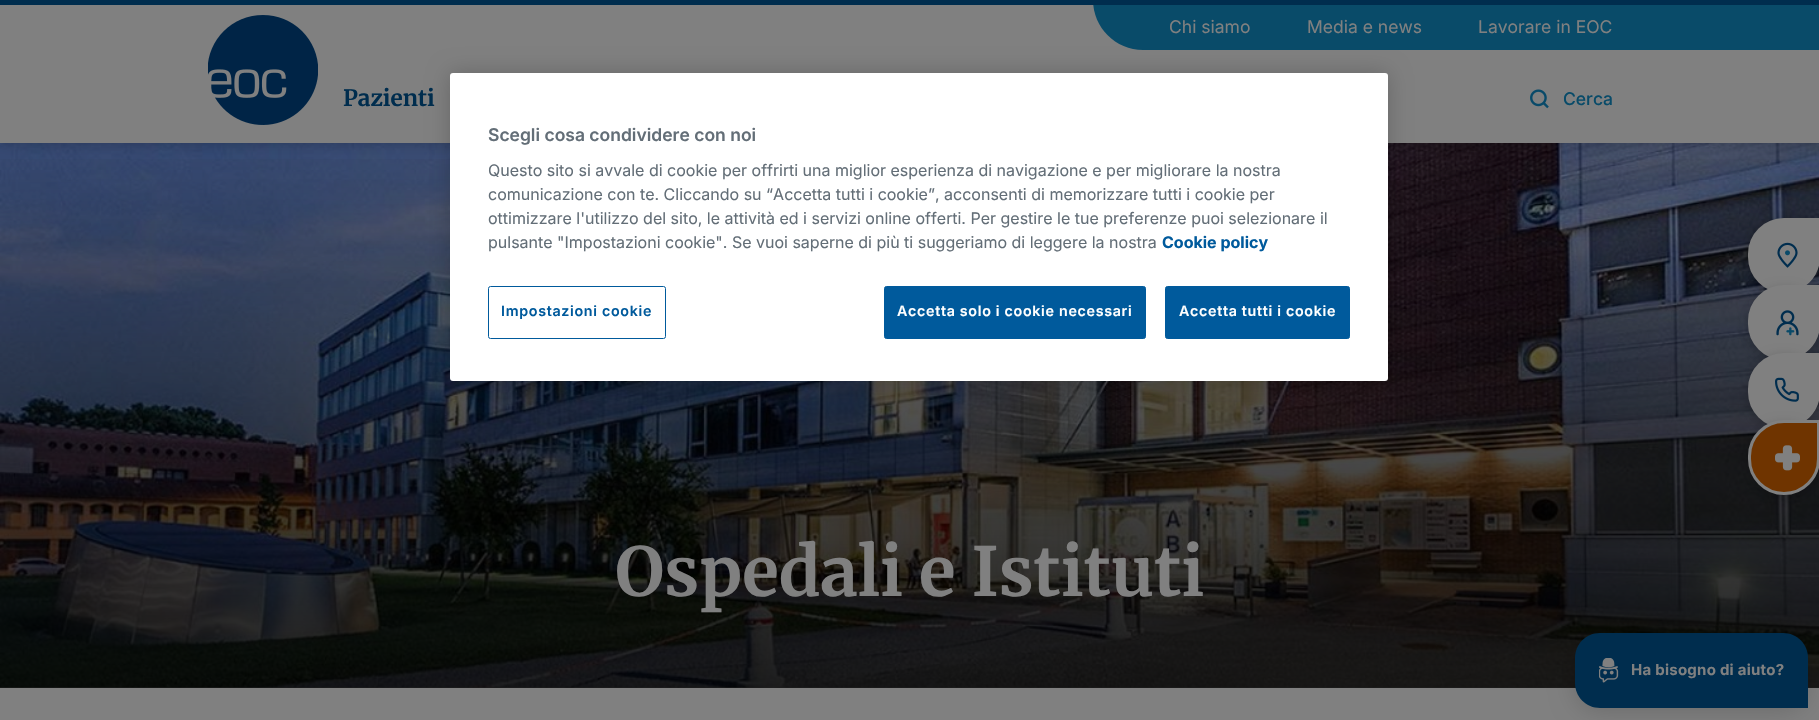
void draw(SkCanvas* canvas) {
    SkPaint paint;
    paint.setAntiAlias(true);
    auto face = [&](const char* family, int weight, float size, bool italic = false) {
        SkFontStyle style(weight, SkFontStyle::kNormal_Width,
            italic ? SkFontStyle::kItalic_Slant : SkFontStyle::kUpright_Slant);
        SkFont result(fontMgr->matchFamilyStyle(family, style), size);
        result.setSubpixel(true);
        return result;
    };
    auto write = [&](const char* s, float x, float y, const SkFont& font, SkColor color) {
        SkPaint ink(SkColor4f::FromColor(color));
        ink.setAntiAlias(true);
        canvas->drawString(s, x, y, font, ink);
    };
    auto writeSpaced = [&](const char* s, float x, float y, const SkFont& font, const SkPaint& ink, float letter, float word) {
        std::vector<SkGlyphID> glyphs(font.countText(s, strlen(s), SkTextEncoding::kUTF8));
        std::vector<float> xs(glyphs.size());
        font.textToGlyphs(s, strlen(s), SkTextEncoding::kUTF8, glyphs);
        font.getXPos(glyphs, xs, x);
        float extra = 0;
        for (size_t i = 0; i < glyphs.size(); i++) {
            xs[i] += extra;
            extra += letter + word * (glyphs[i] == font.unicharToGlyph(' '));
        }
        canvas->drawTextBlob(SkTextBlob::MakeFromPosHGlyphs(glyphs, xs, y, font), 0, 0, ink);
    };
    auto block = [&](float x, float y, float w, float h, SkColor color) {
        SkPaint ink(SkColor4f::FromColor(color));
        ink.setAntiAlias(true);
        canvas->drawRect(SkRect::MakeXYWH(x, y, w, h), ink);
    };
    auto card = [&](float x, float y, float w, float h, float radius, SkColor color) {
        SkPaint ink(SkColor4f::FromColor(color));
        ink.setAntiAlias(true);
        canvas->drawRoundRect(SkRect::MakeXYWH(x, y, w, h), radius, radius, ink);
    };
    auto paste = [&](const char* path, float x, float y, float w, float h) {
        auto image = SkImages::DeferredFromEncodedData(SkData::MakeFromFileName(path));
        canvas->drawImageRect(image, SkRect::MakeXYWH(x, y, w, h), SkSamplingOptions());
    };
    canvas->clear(SkColorSetRGB(128, 128, 128));
    paste("pic9.png", 0, 143, 1819, 545);
    {
        const SkColor colors[] = {SkColorSetARGB(191, 0, 0, 0), SkColorSetARGB(0, 0, 0, 0)};
        const float stops[] = {0, 1};
        const SkPoint ends[] = {{910, 688}, {910, 143}};
        paint.setShader(SkGradientShader::MakeLinear(ends, colors, stops, 2, SkTileMode::kClamp));
        paint.setAlpha(255);
    }
    canvas->drawRect(SkRect::MakeXYWH(0, 159, 1819, 529), paint);
    paint.setShader(nullptr);
    paint.setColor(SkColorSetARGB(51, 0, 0, 0));
    paint.setMaskFilter(SkMaskFilter::MakeBlur(kNormal_SkBlurStyle, 6));
    canvas->drawRect(SkRect::MakeXYWH(0, 0, 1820, 143), paint);
    paint.setMaskFilter(nullptr);
    block(0, 5, 1819, 138, SkColorSetRGB(128, 128, 128));
    paint.setColor(SkColorSetRGB(9, 75, 105));
    canvas->drawPath(SkPathBuilder().moveTo(1093, 0).lineTo(1613, 0).lineTo(1613, 50).lineTo(1143, 50).cubicTo(1115.5f, 50, 1093, 27.5f, 1093, 0).close().detach(), paint);
    block(0, 0, 1819, 5, SkColorSetRGB(0, 45, 78));
    paste("pic1.png", 208, 15, 110, 110);
    auto kFont1 = face("Inter", 400, 17.5f);
    write("Chi siamo", 1169, 33, kFont1, SkColorSetRGB(128, 128, 128));
    write("Media e news", 1307, 33, kFont1, SkColorSetRGB(128, 128, 128));
    write("Lavorare in EOC", 1478, 33, kFont1, SkColorSetRGB(128, 128, 128));
    auto kFont2 = face("Merriweather", 700, 22.5f);
    write("Pazienti", 343, 106, kFont2, SkColorSetRGB(0, 45, 78));
    paste("pic2.png", 1530, 89, 19, 20);
    auto kFont3 = face("Inter", 500, 17.5f);
    write("Cerca", 1563, 105, kFont3, SkColorSetRGB(9, 75, 105));
    block(1613, 5, 206, 45, SkColorSetRGB(9, 75, 105));
    paint.setColor(SkColorSetARGB(51, 0, 0, 0));
    paint.setMaskFilter(SkMaskFilter::MakeBlur(kNormal_SkBlurStyle, 6));
    canvas->drawRoundRect(SkRect::MakeXYWH(1748, 221, 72, 75), 36, 36, paint);
    paint.setMaskFilter(nullptr);
    paint.setColor(SkColorSetRGB(128, 128, 128));
    canvas->drawPath(SkPathBuilder().moveTo(1784, 219.5f).lineTo(1818.5f, 219.5f).lineTo(1818.5f, 257).cubicTo(1818.5f, 276, 1803, 291.5f, 1784, 291.5f).cubicTo(1765, 291.5f, 1749.5f, 276, 1749.5f, 257).lineTo(1749.5f, 254).cubicTo(1749.5f, 235, 1765, 219.5f, 1784, 219.5f).close().detach(), paint);
    paint.setStyle(SkPaint::kStroke_Style);
    paint.setStrokeWidth(3);
    canvas->drawPath(SkPathBuilder().moveTo(1784, 219.5f).lineTo(1818.5f, 219.5f).lineTo(1818.5f, 257).cubicTo(1818.5f, 276, 1803, 291.5f, 1784, 291.5f).cubicTo(1765, 291.5f, 1749.5f, 276, 1749.5f, 257).lineTo(1749.5f, 254).cubicTo(1749.5f, 235, 1765, 219.5f, 1784, 219.5f).close().detach(), paint);
    paste("pic3.png", 1777, 242, 21, 26);
    paste("pic4.png", 1785, 250, 5, 6);
    paint.setStyle(SkPaint::kFill_Style);
    paint.setColor(SkColorSetARGB(51, 0, 0, 0));
    paint.setMaskFilter(SkMaskFilter::MakeBlur(kNormal_SkBlurStyle, 6));
    canvas->drawRoundRect(SkRect::MakeXYWH(1748, 289, 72, 75), 36, 36, paint);
    paint.setMaskFilter(nullptr);
    paint.setColor(SkColorSetRGB(128, 128, 128));
    canvas->drawPath(SkPathBuilder().moveTo(1784, 286.5f).lineTo(1818.5f, 286.5f).lineTo(1818.5f, 324).cubicTo(1818.5f, 343, 1803, 358.5f, 1784, 358.5f).cubicTo(1765, 358.5f, 1749.5f, 343, 1749.5f, 324).lineTo(1749.5f, 321).cubicTo(1749.5f, 302, 1765, 286.5f, 1784, 286.5f).close().detach(), paint);
    paint.setStyle(SkPaint::kStroke_Style);
    canvas->drawPath(SkPathBuilder().moveTo(1784, 286.5f).lineTo(1818.5f, 286.5f).lineTo(1818.5f, 324).cubicTo(1818.5f, 343, 1803, 358.5f, 1784, 358.5f).cubicTo(1765, 358.5f, 1749.5f, 343, 1749.5f, 324).lineTo(1749.5f, 321).cubicTo(1749.5f, 302, 1765, 286.5f, 1784, 286.5f).close().detach(), paint);
    paste("pic5.png", 1776, 310, 23, 26);
    paste("pic6.png", 1786, 327, 9, 9);
    paint.setStyle(SkPaint::kFill_Style);
    paint.setColor(SkColorSetARGB(51, 0, 0, 0));
    paint.setMaskFilter(SkMaskFilter::MakeBlur(kNormal_SkBlurStyle, 6));
    canvas->drawRoundRect(SkRect::MakeXYWH(1748, 356, 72, 75), 36, 36, paint);
    paint.setMaskFilter(nullptr);
    paint.setColor(SkColorSetRGB(128, 128, 128));
    canvas->drawPath(SkPathBuilder().moveTo(1784, 354.5f).lineTo(1818.5f, 354.5f).lineTo(1818.5f, 392).cubicTo(1818.5f, 411, 1803, 426.5f, 1784, 426.5f).cubicTo(1765, 426.5f, 1749.5f, 411, 1749.5f, 392).lineTo(1749.5f, 389).cubicTo(1749.5f, 370, 1765, 354.5f, 1784, 354.5f).close().detach(), paint);
    paint.setStyle(SkPaint::kStroke_Style);
    canvas->drawPath(SkPathBuilder().moveTo(1784, 354.5f).lineTo(1818.5f, 354.5f).lineTo(1818.5f, 392).cubicTo(1818.5f, 411, 1803, 426.5f, 1784, 426.5f).cubicTo(1765, 426.5f, 1749.5f, 411, 1749.5f, 392).lineTo(1749.5f, 389).cubicTo(1749.5f, 370, 1765, 354.5f, 1784, 354.5f).close().detach(), paint);
    paste("pic7.png", 1775, 377, 24, 25);
    paint.setStyle(SkPaint::kFill_Style);
    paint.setColor(SkColorSetARGB(51, 0, 0, 0));
    paint.setMaskFilter(SkMaskFilter::MakeBlur(kNormal_SkBlurStyle, 6));
    canvas->drawRoundRect(SkRect::MakeXYWH(1748, 424, 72, 75), 36, 36, paint);
    paint.setMaskFilter(nullptr);
    paint.setColor(SkColorSetRGB(111, 52, 0));
    canvas->drawPath(SkPathBuilder().moveTo(1784, 421.5f).lineTo(1818.5f, 421.5f).lineTo(1818.5f, 459).cubicTo(1818.5f, 478, 1803, 493.5f, 1784, 493.5f).cubicTo(1765, 493.5f, 1749.5f, 478, 1749.5f, 459).lineTo(1749.5f, 456).cubicTo(1749.5f, 437, 1765, 421.5f, 1784, 421.5f).close().detach(), paint);
    paint.setStyle(SkPaint::kStroke_Style);
    paint.setColor(SkColorSetRGB(128, 128, 128));
    canvas->drawPath(SkPathBuilder().moveTo(1784, 421.5f).lineTo(1818.5f, 421.5f).lineTo(1818.5f, 459).cubicTo(1818.5f, 478, 1803, 493.5f, 1784, 493.5f).cubicTo(1765, 493.5f, 1749.5f, 478, 1749.5f, 459).lineTo(1749.5f, 456).cubicTo(1749.5f, 437, 1765, 421.5f, 1784, 421.5f).close().detach(), paint);
    paste("pic8.png", 1775, 445, 25, 26);
    auto kFont4 = face("Merriweather", 700, 67.5f);
    write("Ospedali e Istituti", 615, 596, kFont4, SkColorSetRGB(128, 128, 128));
    paint.setStyle(SkPaint::kFill_Style);
    paint.setColor(SkColorSetARGB(41, 0, 0, 0));
    paint.setMaskFilter(SkMaskFilter::MakeBlur(kNormal_SkBlurStyle, 12.5f));
    canvas->drawRoundRect(SkRect::MakeXYWH(1575, 636, 233, 75), 25, 25, paint);
    paint.setMaskFilter(nullptr);
    paint.setColor(SkColorSetRGB(0, 45, 78));
    canvas->drawPath(SkPathBuilder().moveTo(1600, 633).lineTo(1783, 633).cubicTo(1797, 633, 1808, 644, 1808, 658).lineTo(1808, 708).lineTo(1600, 708).cubicTo(1586, 708, 1575, 697, 1575, 683).lineTo(1575, 658).cubicTo(1575, 644, 1586, 633, 1600, 633).close().detach(), paint);
    paste("pic10.png", 1599, 658, 20, 25);
    auto kFont5 = face("Inter", 700, 15);
    paint.setColor(SkColorSetRGB(128, 128, 128));
    writeSpaced("Ha bisogno di aiuto?", 1631, 675, kFont5, paint, 0.25f, 0);
    paint.setColor(SkColorSetARGB(51, 0, 0, 0));
    paint.setMaskFilter(SkMaskFilter::MakeBlur(kNormal_SkBlurStyle, 11));
    canvas->drawRoundRect(SkRect::MakeXYWH(450, 73, 938, 308), 3, 3, paint);
    paint.setMaskFilter(nullptr);
    card(450, 73, 938, 308, 3, SK_ColorWHITE);
    auto kFont6 = face("Inter", 600, 17.5f);
    write("Scegli cosa condividere con noi", 488, 141, kFont6, SkColorSetRGB(99, 110, 119));
    auto kFont7 = face("Inter", 400, 16);
    write("Questo sito si avvale di cookie per offrirti una miglior esperienza di navigazione e per migliorare la nostra", 488, 176, kFont7, SkColorSetRGB(99, 110, 119));
    write("comunicazione con te. Cliccando su “Accetta tutti i cookie”, acconsenti di memorizzare tutti i cookie per", 488, 200, kFont7, SkColorSetRGB(99, 110, 119));
    write("ottimizzare l'utilizzo del sito, le attività ed i servizi online offerti. Per gestire le tue preferenze puoi selezionare il", 488, 224, kFont7, SkColorSetRGB(99, 110, 119));
    write("pulsante \"Impostazioni cookie\". Se vuoi saperne di più ti suggeriamo di leggere la nostra", 488, 248, kFont7, SkColorSetRGB(99, 110, 119));
    auto kFont8 = face("Inter", 700, 16);
    write("Cookie policy", 1162, 248, kFont8, SkColorSetRGB(0, 90, 156));
    paint.setStyle(SkPaint::kStroke_Style);
    paint.setStrokeWidth(1);
    paint.setColor(SkColorSetRGB(0, 90, 156));
    canvas->drawRoundRect(SkRect::MakeXYWH(488.5f, 286.5f, 177, 52), 2, 2, paint);
    auto kFont9 = face("Inter", 600, 14.25f);
    paint.setStyle(SkPaint::kFill_Style);
    writeSpaced("Impostazioni cookie", 501, 316, kFont9, paint, 0.7f, 0);
    canvas->drawRoundRect(SkRect::MakeXYWH(884.5f, 286.5f, 261, 52), 2, 2, paint);
    paint.setStyle(SkPaint::kStroke_Style);
    canvas->drawRoundRect(SkRect::MakeXYWH(884.5f, 286.5f, 261, 52), 2, 2, paint);
    paint.setStyle(SkPaint::kFill_Style);
    paint.setColor(SK_ColorWHITE);
    writeSpaced("Accetta solo i cookie necessari", 897, 316, kFont9, paint, 0.7f, 0);
    paint.setColor(SkColorSetRGB(0, 90, 156));
    canvas->drawRoundRect(SkRect::MakeXYWH(1165.5f, 286.5f, 184, 52), 2, 2, paint);
    paint.setStyle(SkPaint::kStroke_Style);
    canvas->drawRoundRect(SkRect::MakeXYWH(1165.5f, 286.5f, 184, 52), 2, 2, paint);
    paint.setStyle(SkPaint::kFill_Style);
    paint.setColor(SK_ColorWHITE);
    writeSpaced("Accetta tutti i cookie", 1179, 316, kFont9, paint, 0.7f, 0);
}
